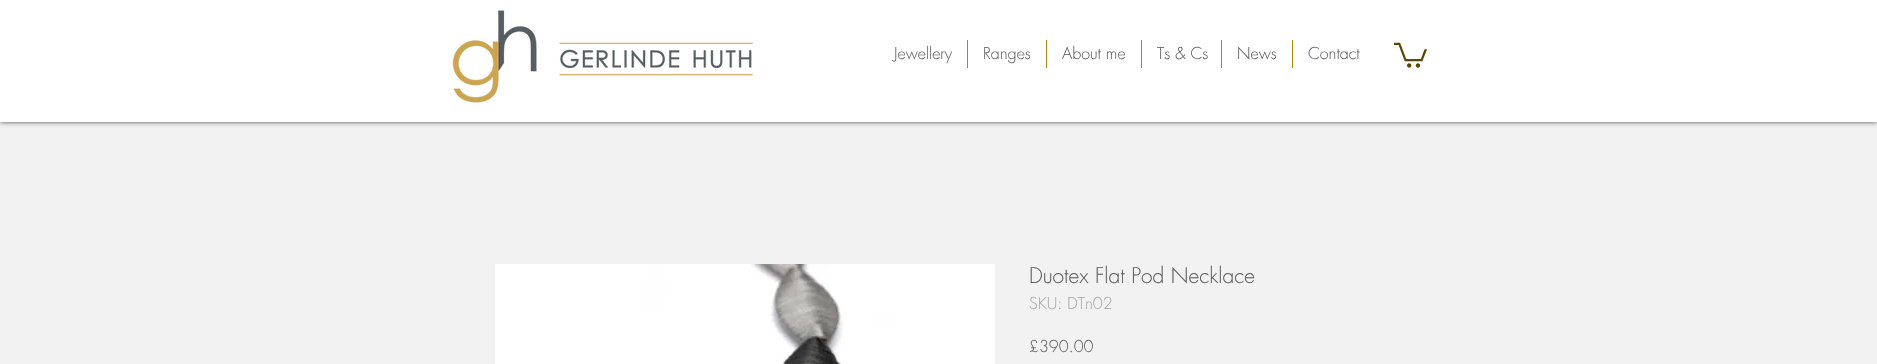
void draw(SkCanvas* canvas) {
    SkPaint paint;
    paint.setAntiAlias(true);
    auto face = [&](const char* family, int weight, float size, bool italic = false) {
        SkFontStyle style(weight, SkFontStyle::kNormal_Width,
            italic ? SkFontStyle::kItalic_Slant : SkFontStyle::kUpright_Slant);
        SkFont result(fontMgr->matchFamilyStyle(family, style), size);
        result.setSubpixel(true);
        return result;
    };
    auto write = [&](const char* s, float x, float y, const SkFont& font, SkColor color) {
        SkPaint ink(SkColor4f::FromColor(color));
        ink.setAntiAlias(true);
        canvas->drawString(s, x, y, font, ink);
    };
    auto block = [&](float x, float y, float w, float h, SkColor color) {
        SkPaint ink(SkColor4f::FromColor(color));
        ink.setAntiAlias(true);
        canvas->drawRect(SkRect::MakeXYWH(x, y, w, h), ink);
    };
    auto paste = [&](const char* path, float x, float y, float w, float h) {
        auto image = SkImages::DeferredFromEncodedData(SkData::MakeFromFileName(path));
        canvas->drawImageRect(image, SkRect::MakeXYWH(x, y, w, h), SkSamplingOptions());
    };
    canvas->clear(SkColorSetRGB(242, 242, 242));
    paint.setColor(SkColorSetARGB(179, 0, 0, 0));
    paint.setMaskFilter(SkMaskFilter::MakeBlur(kNormal_SkBlurStyle, 2.5f));
    canvas->drawRect(SkRect::MakeXYWH(0, 0, 1877, 122), paint);
    paint.setMaskFilter(nullptr);
    block(0, 0, 1877, 122, SK_ColorWHITE);
    paste("pic1.png", 452, 10, 301, 93);
    auto kFont1 = face("futura", 300, 16);
    write("Jewellery", 894, 59, kFont1, SkColorSetRGB(96, 96, 96));
    block(967, 40, 1, 28, SkColorSetRGB(169, 138, 0));
    write("Ranges", 983, 59, kFont1, SkColorSetRGB(96, 96, 96));
    block(1046, 40, 1, 28, SkColorSetRGB(169, 138, 0));
    write("About me", 1062, 59, kFont1, SkColorSetRGB(96, 96, 96));
    block(1141, 40, 1, 28, SkColorSetRGB(169, 138, 0));
    write("Ts & Cs", 1157, 59, kFont1, SkColorSetRGB(96, 96, 96));
    block(1221, 40, 1, 28, SkColorSetRGB(169, 138, 0));
    write("News", 1237, 59, kFont1, SkColorSetRGB(96, 96, 96));
    block(1292, 40, 1, 28, SkColorSetRGB(169, 138, 0));
    write("Contact", 1308, 59, kFont1, SkColorSetRGB(96, 96, 96));
    paste("pic2.png", 1394, 42, 33, 26);
    paste("pic3.png", 495, 264, 500, 100);
    auto kFont2 = face("futura", 300, 21);
    write("Duotex Flat Pod Necklace", 1029, 283, kFont2, SkColorSetRGB(96, 96, 96));
    write("SKU: DTn02", 1029, 309, kFont1, SkColorSetRGB(168, 168, 168));
    write("£390.00", 1029, 352, kFont1, SkColorSetRGB(96, 96, 96));
}
